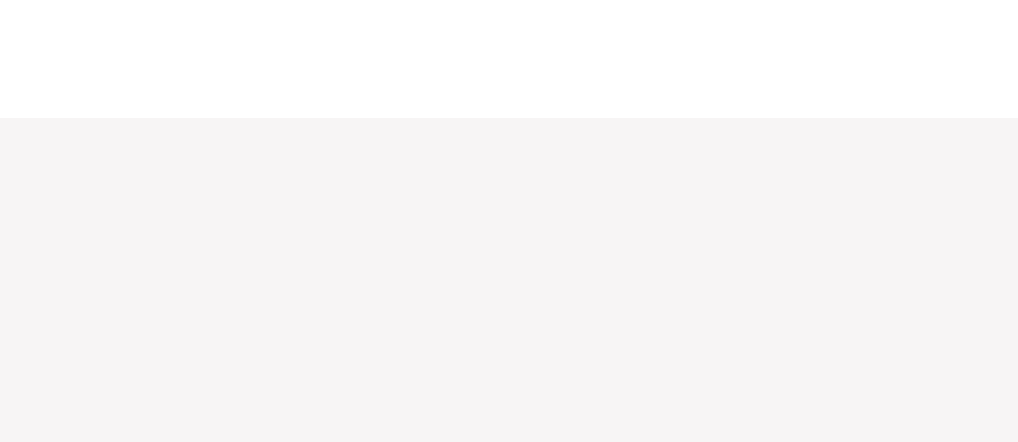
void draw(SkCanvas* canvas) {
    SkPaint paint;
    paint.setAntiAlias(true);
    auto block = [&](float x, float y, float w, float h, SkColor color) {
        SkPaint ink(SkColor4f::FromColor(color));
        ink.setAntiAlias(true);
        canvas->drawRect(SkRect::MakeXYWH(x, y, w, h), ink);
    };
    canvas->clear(SK_ColorWHITE);
    block(0, 118, 1018, 324, SkColorSetRGB(247, 245, 245));
}
